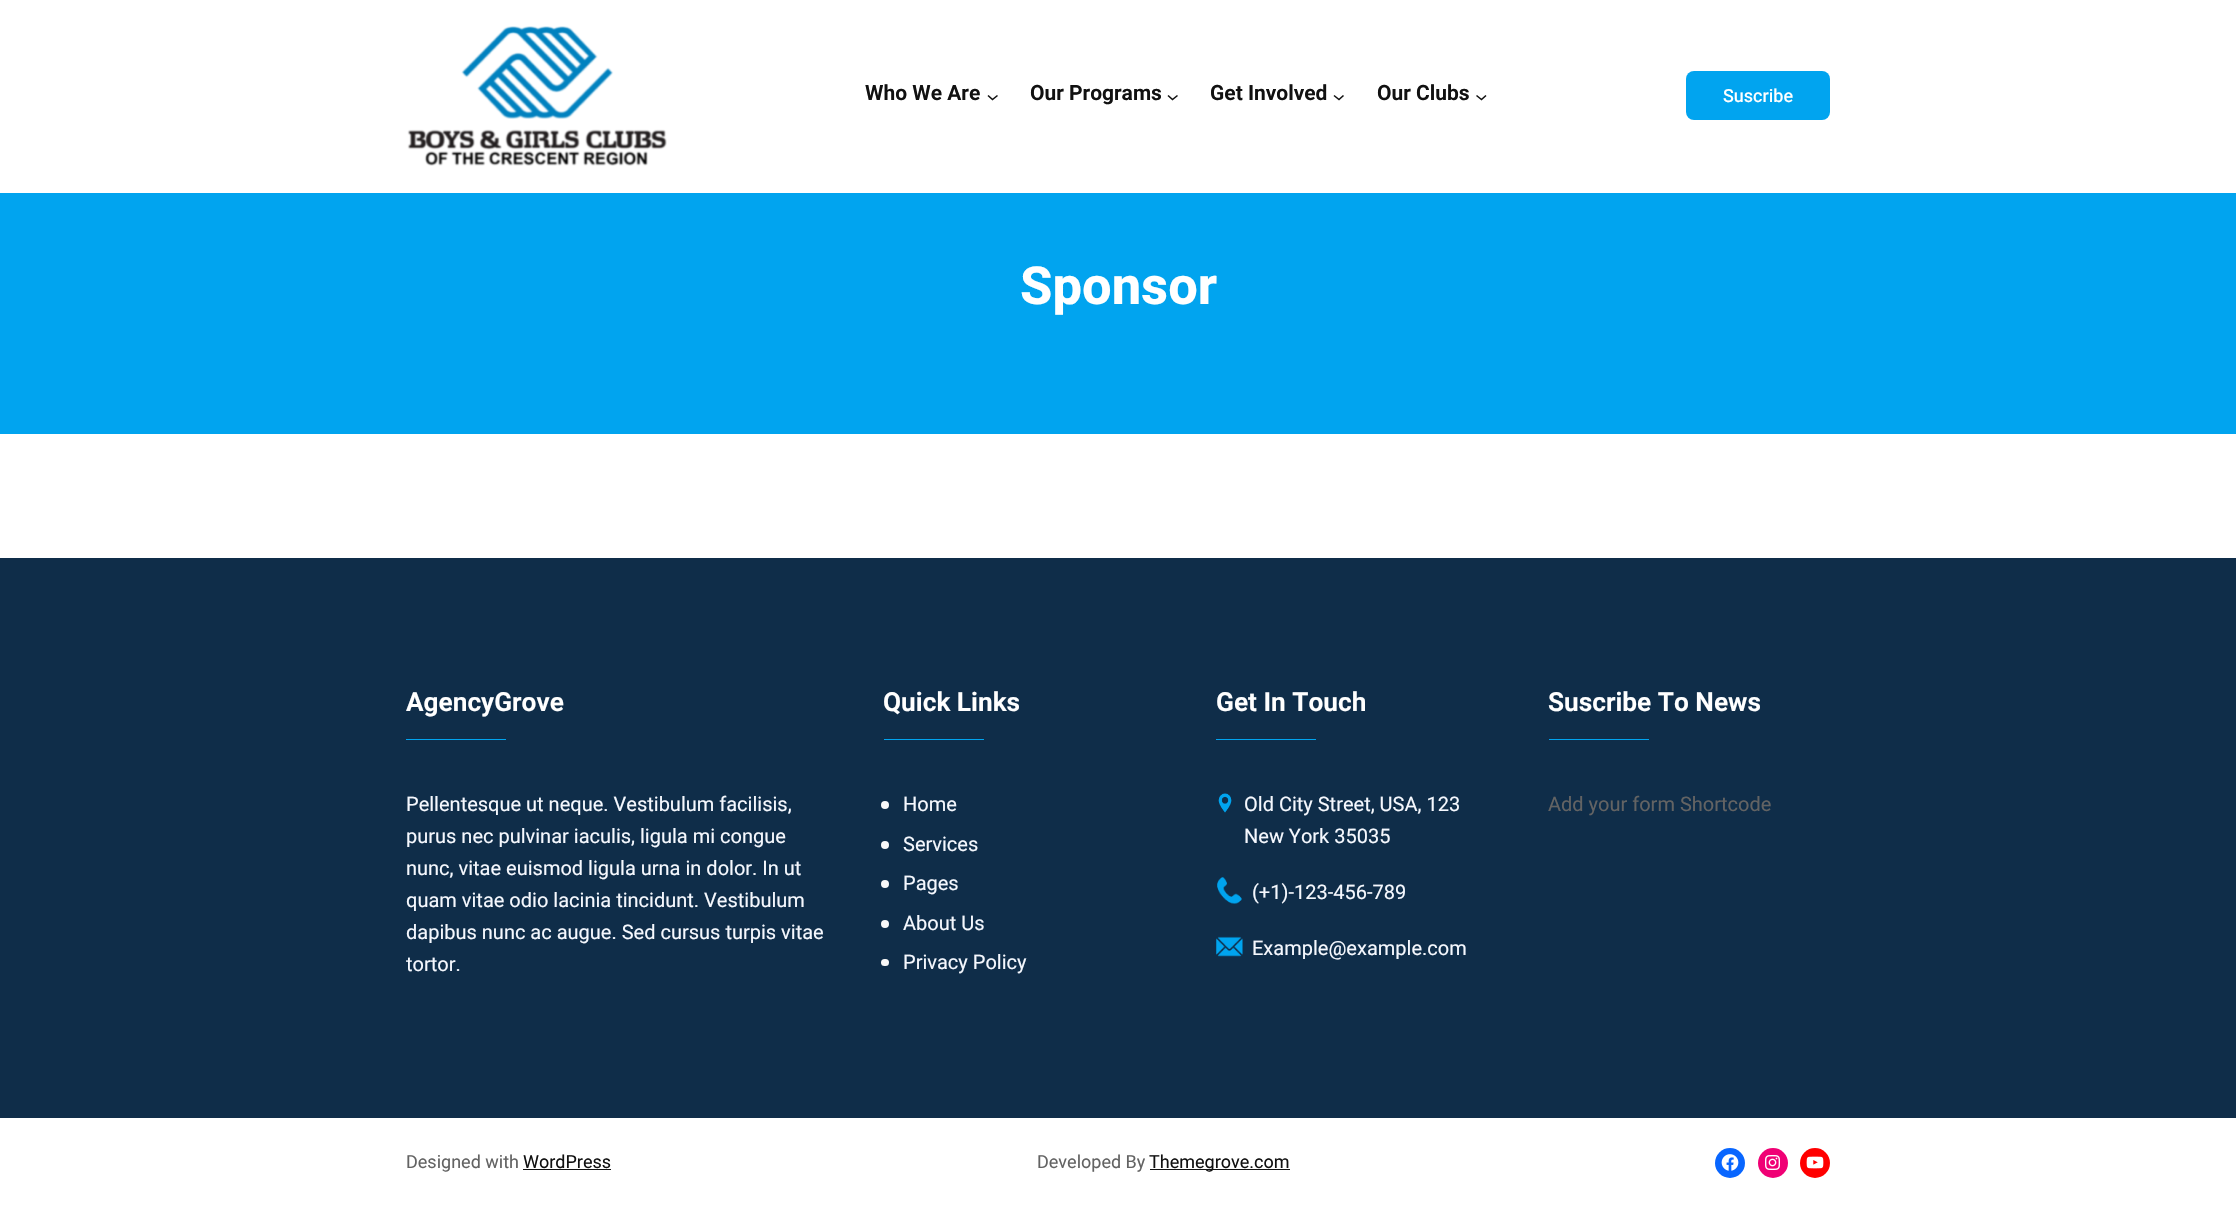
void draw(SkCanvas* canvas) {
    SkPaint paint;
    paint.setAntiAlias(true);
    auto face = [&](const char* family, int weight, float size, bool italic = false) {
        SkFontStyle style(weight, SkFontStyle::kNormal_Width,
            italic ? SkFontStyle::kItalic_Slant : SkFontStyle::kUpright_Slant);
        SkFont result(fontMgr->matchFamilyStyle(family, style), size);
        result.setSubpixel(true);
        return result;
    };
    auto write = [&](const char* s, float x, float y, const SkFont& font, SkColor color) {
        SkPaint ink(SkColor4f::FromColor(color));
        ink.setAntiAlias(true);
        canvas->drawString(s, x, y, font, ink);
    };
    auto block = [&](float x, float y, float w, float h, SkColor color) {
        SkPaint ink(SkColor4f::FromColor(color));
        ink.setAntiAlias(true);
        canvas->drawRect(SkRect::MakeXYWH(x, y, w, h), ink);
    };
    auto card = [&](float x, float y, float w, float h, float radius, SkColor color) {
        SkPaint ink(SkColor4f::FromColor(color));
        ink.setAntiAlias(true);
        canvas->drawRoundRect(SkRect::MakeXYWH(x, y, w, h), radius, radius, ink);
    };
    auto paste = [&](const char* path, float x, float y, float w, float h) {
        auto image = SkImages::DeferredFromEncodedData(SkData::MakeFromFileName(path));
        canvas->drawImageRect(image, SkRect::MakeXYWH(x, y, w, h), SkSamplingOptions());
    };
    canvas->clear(SK_ColorWHITE);
    paste("pic1.png", 407, 26, 260, 140);
    auto kFont1 = face("Heebo", 600, 21);
    write("Who We Are", 865, 100, kFont1, SkColorSetRGB(17, 17, 17));
    paint.setStyle(SkPaint::kStroke_Style);
    paint.setStrokeWidth(1.6f);
    paint.setColor(SkColorSetRGB(17, 17, 17));
    canvas->drawPath(SkPathBuilder().moveTo(988, 95.5f).lineTo(992.5f, 99.5f).lineTo(997.5f, 95.5f).detach(), paint);
    write("Our Programs", 1030, 100, kFont1, SkColorSetRGB(17, 17, 17));
    canvas->drawPath(SkPathBuilder().moveTo(1168, 95.5f).lineTo(1172.5f, 99.5f).lineTo(1177.5f, 95.5f).detach(), paint);
    write("Get Involved", 1210, 100, kFont1, SkColorSetRGB(17, 17, 17));
    canvas->drawPath(SkPathBuilder().moveTo(1334, 95.5f).lineTo(1339, 99.5f).lineTo(1343.5f, 95.5f).detach(), paint);
    write("Our Clubs", 1377, 100, kFont1, SkColorSetRGB(17, 17, 17));
    canvas->drawPath(SkPathBuilder().moveTo(1476.5f, 95.5f).lineTo(1481.5f, 99.5f).lineTo(1486, 95.5f).detach(), paint);
    card(1686, 71, 144, 49, 8, SkColorSetRGB(1, 164, 239));
    auto kFont2 = face("Heebo", 500, 18);
    write("Suscribe", 1723, 102, kFont2, SK_ColorWHITE);
    block(0, 193, 2236, 241, SkColorSetRGB(1, 164, 239));
    auto kFont3 = face("Heebo", 700, 52.5f);
    write("Sponsor", 1020, 304, kFont3, SK_ColorWHITE);
    block(0, 558, 2236, 560, SkColorSetRGB(15, 45, 73));
    auto kFont4 = face("Heebo", 600, 26.25f);
    write("AgencyGrove", 406, 711, kFont4, SK_ColorWHITE);
    block(406, 739, 100, 1, SkColorSetRGB(1, 164, 239));
    auto kFont5 = face("Heebo", 400, 20);
    write("Pellentesque ut neque. Vestibulum facilisis,", 406, 811, kFont5, SkColorSetRGB(245, 248, 254));
    write("purus nec pulvinar iaculis, ligula mi congue", 406, 843, kFont5, SkColorSetRGB(245, 248, 254));
    write("nunc, vitae euismod ligula urna in dolor. In ut", 406, 875, kFont5, SkColorSetRGB(245, 248, 254));
    write("quam vitae odio lacinia tincidunt. Vestibulum", 406, 907, kFont5, SkColorSetRGB(245, 248, 254));
    write("dapibus nunc ac augue. Sed cursus turpis vitae", 406, 939, kFont5, SkColorSetRGB(245, 248, 254));
    write("tortor.", 406, 971, kFont5, SkColorSetRGB(245, 248, 254));
    write("Quick Links", 883, 711, kFont4, SK_ColorWHITE);
    block(884, 739, 100, 1, SkColorSetRGB(1, 164, 239));
    paint.setStyle(SkPaint::kFill_Style);
    paint.setColor(SkColorSetRGB(249, 249, 249));
    canvas->drawCircle(885, 805, 4, paint);
    write("Home", 903, 811, kFont5, SkColorSetRGB(245, 248, 254));
    canvas->drawCircle(885, 845, 4, paint);
    write("Services", 903, 851, kFont5, SkColorSetRGB(245, 248, 254));
    canvas->drawCircle(885, 884, 4, paint);
    write("Pages", 903, 890, kFont5, SkColorSetRGB(245, 248, 254));
    canvas->drawCircle(885, 924, 4, paint);
    write("About Us", 903, 930, kFont5, SkColorSetRGB(245, 248, 254));
    card(881, 959, 8, 7, 3.5f, SkColorSetRGB(249, 249, 249));
    write("Privacy Policy", 903, 969, kFont5, SkColorSetRGB(245, 248, 254));
    write("Get In Touch", 1216, 711, kFont4, SK_ColorWHITE);
    block(1216, 739, 100, 1, SkColorSetRGB(1, 164, 239));
    paste("pic2.png", 1218, 793, 14, 20);
    write("Old City Street, USA, 123", 1244, 811, kFont5, SkColorSetRGB(245, 248, 254));
    write("New York 35035", 1244, 843, kFont5, SkColorSetRGB(245, 248, 254));
    paste("pic3.png", 1217, 877, 25, 27);
    write("(+1)-123-456-789", 1252, 899, kFont5, SkColorSetRGB(245, 248, 254));
    paste("pic4.png", 1216, 936, 27, 21);
    write("Example@example.com", 1252, 955, kFont5, SkColorSetRGB(245, 248, 254));
    write("Suscribe To News", 1548, 711, kFont4, SK_ColorWHITE);
    block(1549, 739, 100, 1, SkColorSetRGB(1, 164, 239));
    write("Add your form Shortcode", 1548, 811, kFont5, SkColorSetRGB(99, 99, 99));
    auto kFont6 = face("Heebo", 400, 18);
    write("Designed with", 406, 1168, kFont6, SkColorSetRGB(99, 99, 99));
    write("WordPress", 523, 1168, kFont6, SkColorSetRGB(17, 17, 17));
    block(523, 1169, 88, 1, SkColorSetRGB(17, 17, 17));
    write("Developed By", 1037, 1168, kFont6, SkColorSetRGB(99, 99, 99));
    block(1150, 1169, 140, 1, SkColorSetRGB(17, 17, 17));
    write("Themegrove.com", 1149, 1168, kFont6, SkColorSetRGB(17, 17, 17));
    paint.setColor(SkColorSetRGB(8, 102, 255));
    canvas->drawCircle(1730, 1163, 15, paint);
    paste("pic5.png", 1721, 1154, 18, 17);
    paint.setColor(SkColorSetRGB(240, 0, 117));
    canvas->drawCircle(1773, 1163, 15, paint);
    paste("pic6.png", 1765, 1155, 15, 15);
    paint.setColor(SkColorSetRGB(255, 0, 0));
    canvas->drawCircle(1815, 1163, 15, paint);
    paste("pic7.png", 1806, 1156, 18, 13);
}
